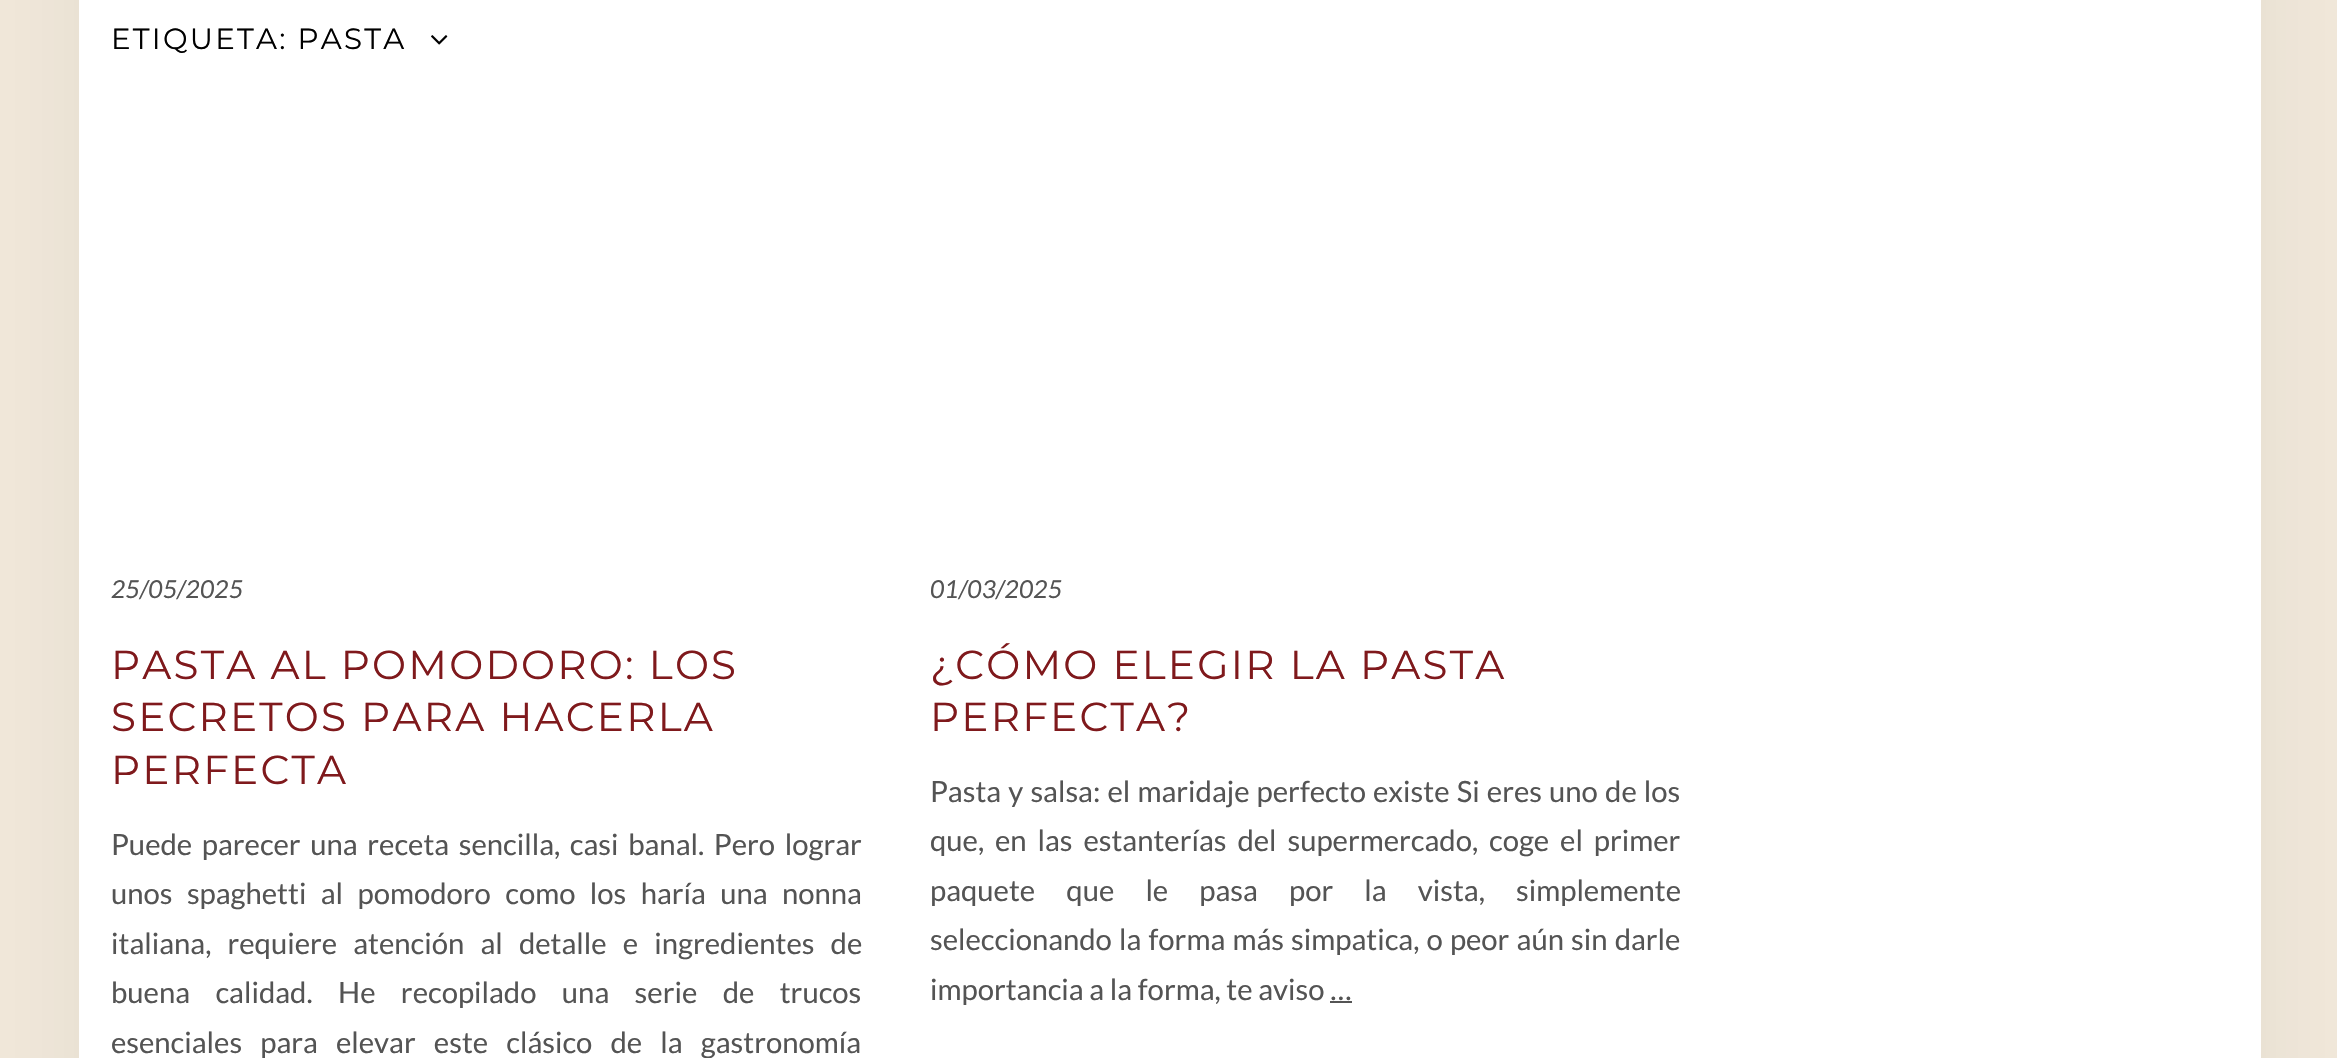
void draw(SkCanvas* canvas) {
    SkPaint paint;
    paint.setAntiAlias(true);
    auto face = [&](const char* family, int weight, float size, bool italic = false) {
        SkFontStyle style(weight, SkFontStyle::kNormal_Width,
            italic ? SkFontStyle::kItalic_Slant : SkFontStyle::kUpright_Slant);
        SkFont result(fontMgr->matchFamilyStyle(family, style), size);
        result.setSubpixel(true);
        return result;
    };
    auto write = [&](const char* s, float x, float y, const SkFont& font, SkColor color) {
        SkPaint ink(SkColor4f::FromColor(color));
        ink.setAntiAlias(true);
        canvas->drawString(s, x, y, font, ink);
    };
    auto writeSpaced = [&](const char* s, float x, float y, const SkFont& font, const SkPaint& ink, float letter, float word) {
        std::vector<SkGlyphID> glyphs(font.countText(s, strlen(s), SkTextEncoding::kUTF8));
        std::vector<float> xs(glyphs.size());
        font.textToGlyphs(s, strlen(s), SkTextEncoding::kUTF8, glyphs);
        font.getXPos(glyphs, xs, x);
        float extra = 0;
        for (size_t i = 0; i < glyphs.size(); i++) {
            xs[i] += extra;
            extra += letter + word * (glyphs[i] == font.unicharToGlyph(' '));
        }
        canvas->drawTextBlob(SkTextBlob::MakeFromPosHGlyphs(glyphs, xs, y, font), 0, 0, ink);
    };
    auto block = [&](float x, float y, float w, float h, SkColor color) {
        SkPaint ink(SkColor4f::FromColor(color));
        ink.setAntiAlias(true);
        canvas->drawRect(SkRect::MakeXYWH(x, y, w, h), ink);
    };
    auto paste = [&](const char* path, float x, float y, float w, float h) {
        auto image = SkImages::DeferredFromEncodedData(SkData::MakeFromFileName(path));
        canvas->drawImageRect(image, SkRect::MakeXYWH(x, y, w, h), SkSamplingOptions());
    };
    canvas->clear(SkColorSetRGB(242, 233, 219));
    paint.setColor(SkColorSetARGB(15, 0, 0, 0));
    paint.setMaskFilter(SkMaskFilter::MakeBlur(kNormal_SkBlurStyle, 56));
    canvas->drawRect(SkRect::MakeXYWH(79, -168, 2182, 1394), paint);
    paint.setMaskFilter(nullptr);
    block(79, 0, 2182, 1058, SK_ColorWHITE);
    auto kFont1 = face("Montserrat", 400, 29.25f);
    paint.setColor(SK_ColorBLACK);
    writeSpaced("ETIQUETA: PASTA", 111, 49, kFont1, paint, 2.25f, 0);
    paste("pic1.png", 431, 35, 17, 10);
    auto kFont2 = face("Lato", 400, 24.75f, true);
    write("25/05/2025", 111, 598, kFont2, SkColorSetRGB(84, 84, 84));
    auto kFont3 = face("Montserrat", 400, 40.5f);
    paint.setColor(SkColorSetRGB(127, 25, 28));
    writeSpaced("PASTA AL POMODORO: LOS", 111, 679, kFont3, paint, 2.25f, 0);
    writeSpaced("SECRETOS PARA HACERLA", 111, 731, kFont3, paint, 2.25f, 0);
    writeSpaced("PERFECTA", 111, 784, kFont3, paint, 2.25f, 0);
    auto kFont4 = face("Lato", 400, 29.25f);
    paint.setColor(SkColorSetRGB(84, 84, 84));
    writeSpaced("Puede parecer una receta sencilla, casi banal. Pero lograr", 111, 855, kFont4, paint, 0, 4);
    writeSpaced("unos spaghetti al pomodoro como los haría una nonna", 111, 904, kFont4, paint, 0, 8.75f);
    writeSpaced("italiana, requiere atención al detalle e ingredientes de", 111, 954, kFont4, paint, 0, 10.5f);
    writeSpaced("buena calidad. He recopilado una serie de trucos", 111, 1003, kFont4, paint, 0, 19.75f);
    writeSpaced("esenciales para elevar este clásico de la gastronomía", 111, 1053, kFont4, paint, 0, 12.5f);
    write("01/03/2025", 930, 598, kFont2, SkColorSetRGB(84, 84, 84));
    paint.setColor(SkColorSetRGB(127, 25, 28));
    writeSpaced("¿CÓMO ELEGIR LA PASTA", 930, 679, kFont3, paint, 2.25f, 0);
    writeSpaced("PERFECTA?", 930, 731, kFont3, paint, 2.25f, 0);
    paint.setColor(SkColorSetRGB(84, 84, 84));
    writeSpaced("Pasta y salsa: el maridaje perfecto existe Si eres uno de los", 930, 802, kFont4, paint, 0, 1.5f);
    writeSpaced("que, en las estanterías del supermercado, coge el primer", 930, 851, kFont4, paint, 0, 5.25f);
    writeSpaced("paquete que le pasa por la vista, simplemente", 930, 901, kFont4, paint, 0, 25.5f);
    writeSpaced("seleccionando la forma más simpatica, o peor aún sin darle", 930, 950, kFont4, paint, 0, 1.5f);
    write("importancia a la forma, te aviso …", 930, 1000, kFont4, SkColorSetRGB(84, 84, 84));
    block(1330, 1001, 22, 2, SkColorSetRGB(84, 84, 84));
}
